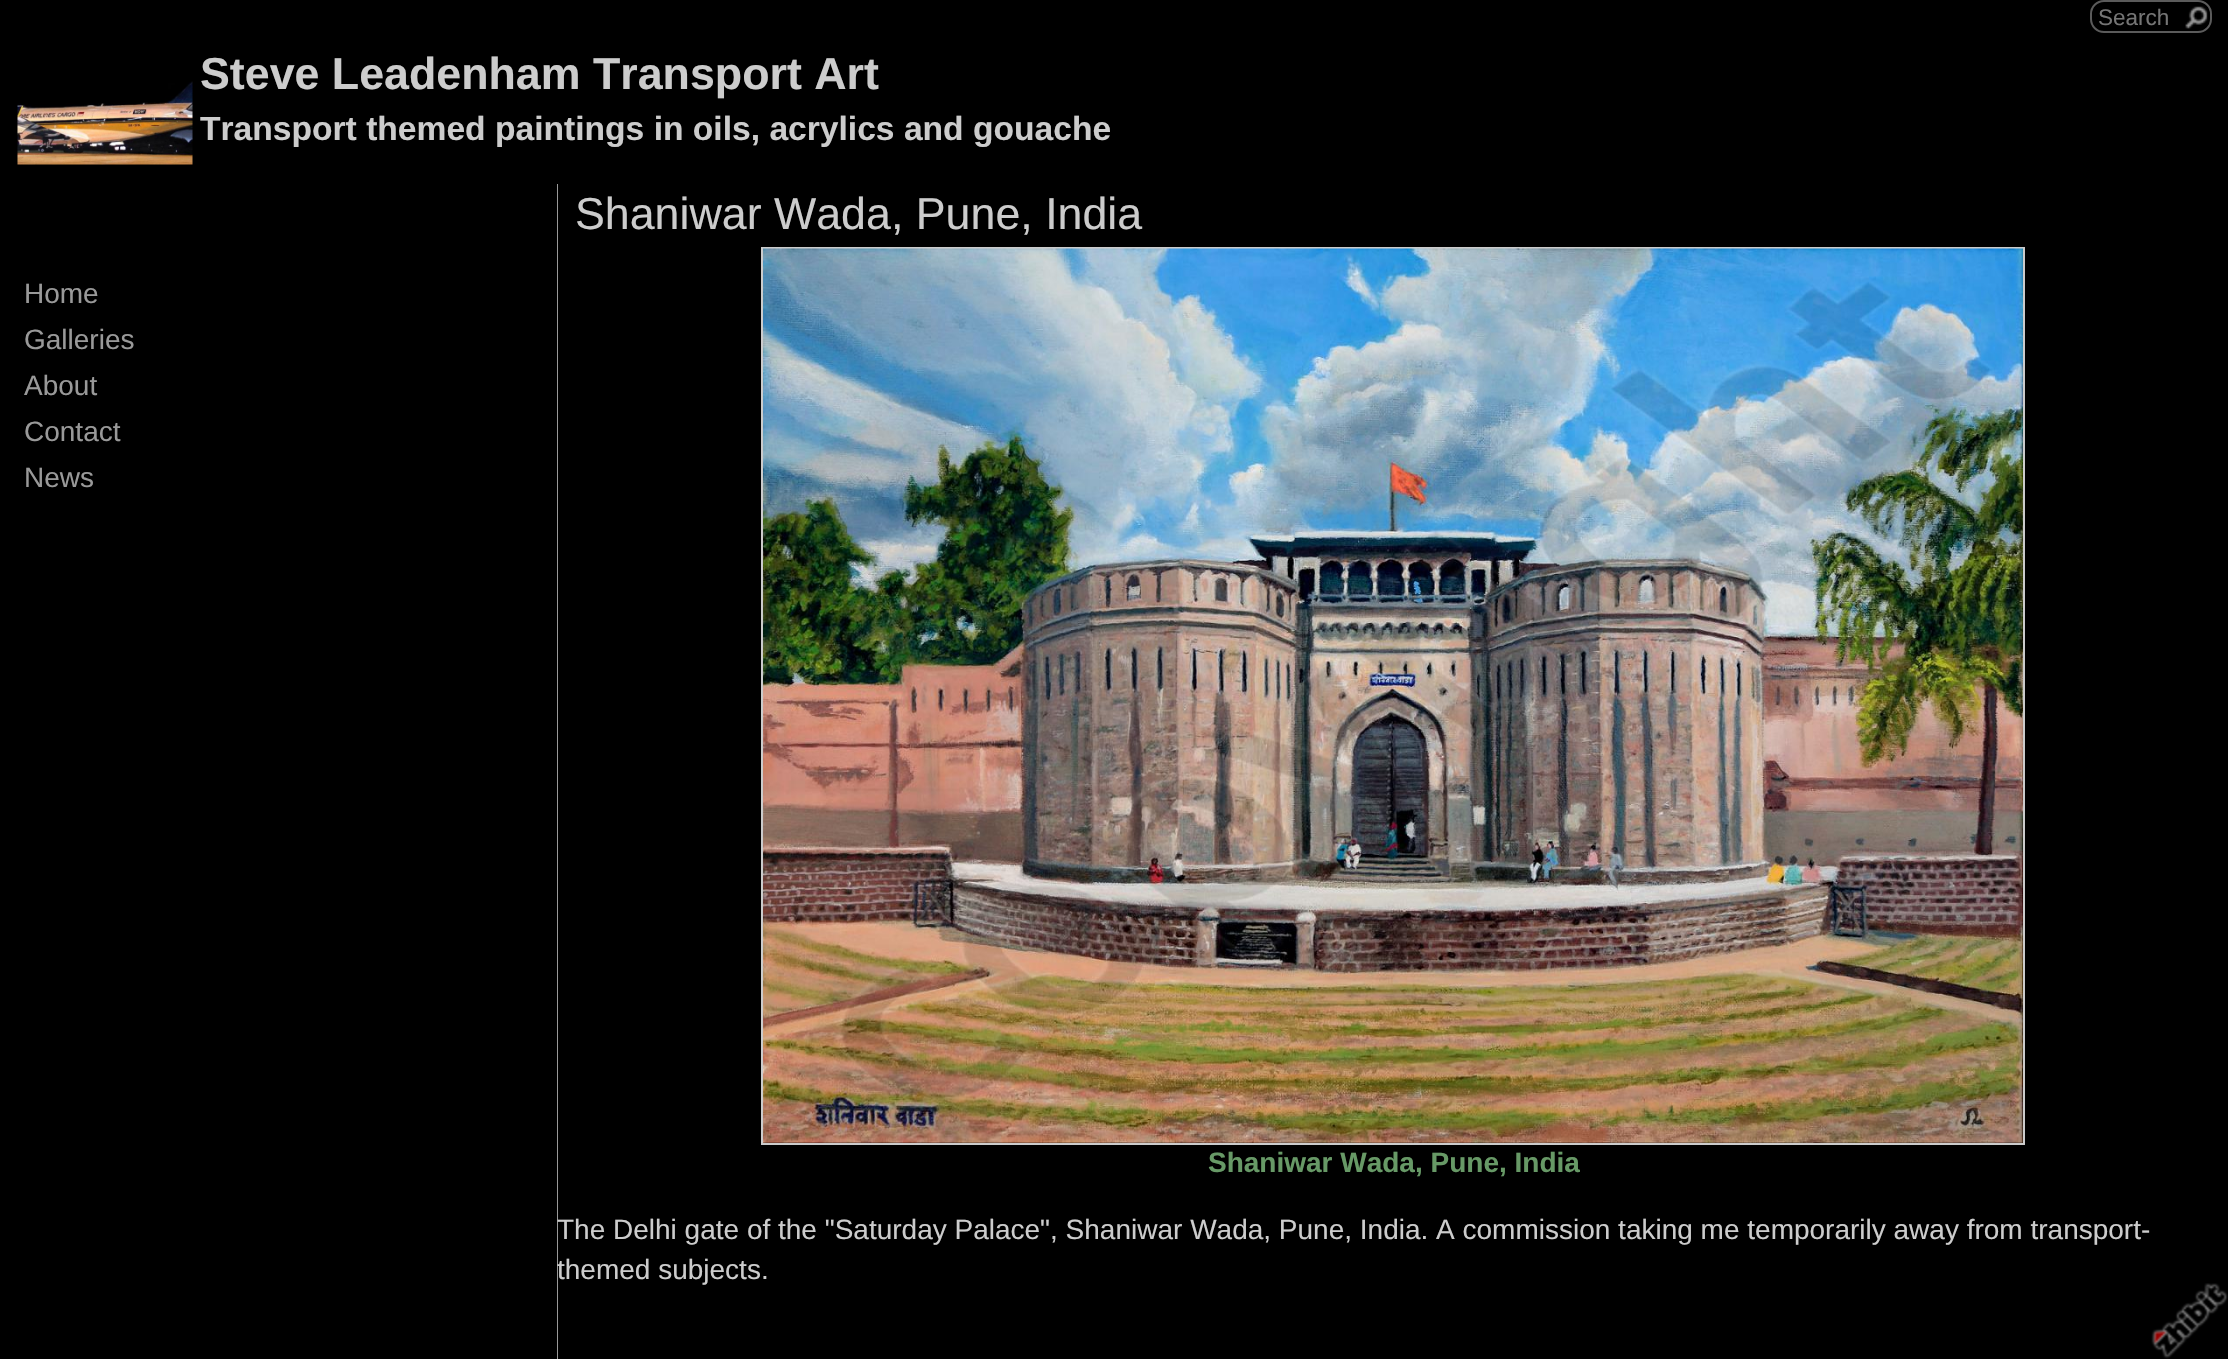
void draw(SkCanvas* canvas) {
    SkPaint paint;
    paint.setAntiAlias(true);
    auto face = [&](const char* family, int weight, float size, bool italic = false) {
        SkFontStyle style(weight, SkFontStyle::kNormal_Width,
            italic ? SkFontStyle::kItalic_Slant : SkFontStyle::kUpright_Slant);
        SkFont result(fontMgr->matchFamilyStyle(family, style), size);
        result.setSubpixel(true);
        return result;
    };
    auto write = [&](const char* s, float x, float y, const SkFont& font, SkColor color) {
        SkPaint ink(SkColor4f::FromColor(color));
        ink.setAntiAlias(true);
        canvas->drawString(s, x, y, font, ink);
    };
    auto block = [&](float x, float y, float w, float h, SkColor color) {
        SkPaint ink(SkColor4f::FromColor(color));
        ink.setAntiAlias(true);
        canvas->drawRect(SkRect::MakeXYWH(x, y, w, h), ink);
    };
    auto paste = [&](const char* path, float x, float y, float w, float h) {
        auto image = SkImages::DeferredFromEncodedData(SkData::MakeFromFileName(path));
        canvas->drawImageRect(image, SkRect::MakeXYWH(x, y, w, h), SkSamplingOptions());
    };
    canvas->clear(SK_ColorBLACK);
    paste("pic1.png", 2185, 6, 23, 23);
    paint.setStyle(SkPaint::kStroke_Style);
    paint.setStrokeWidth(2);
    paint.setColor(SkColorSetRGB(91, 91, 91));
    canvas->drawRoundRect(SkRect::MakeXYWH(2091, 1, 120, 31), 13, 13, paint);
    auto kFont1 = face("Liberation Sans", 400, 22.5f);
    write("Search", 2098, 25, kFont1, SkColorSetRGB(117, 117, 117));
    paste("pic2.png", 17, 81, 176, 84);
    auto kFont2 = face("Liberation Sans", 700, 44.75f);
    write("Steve Leadenham Transport Art", 200, 89, kFont2, SkColorSetRGB(204, 204, 204));
    auto kFont3 = face("Liberation Sans", 700, 33.6f);
    write("Transport themed paintings in oils, acrylics and gouache", 200, 140, kFont3, SkColorSetRGB(204, 204, 204));
    block(557, 184, 1, 1175, SkColorSetRGB(153, 153, 153));
    auto kFont4 = face("Liberation Sans", 400, 28);
    write("Home", 24, 303, kFont4, SkColorSetRGB(153, 153, 153));
    write("Galleries", 24, 349, kFont4, SkColorSetRGB(153, 153, 153));
    write("About", 24, 395, kFont4, SkColorSetRGB(153, 153, 153));
    write("Contact", 24, 441, kFont4, SkColorSetRGB(153, 153, 153));
    write("News", 24, 487, kFont4, SkColorSetRGB(153, 153, 153));
    auto kFont5 = face("Liberation Sans", 400, 44.75f);
    write("Shaniwar Wada, Pune, India", 575, 229, kFont5, SkColorSetRGB(204, 204, 204));
    paint.setColor(SkColorSetRGB(204, 204, 204));
    canvas->drawRect(SkRect::MakeXYWH(762, 248, 1262, 896), paint);
    paste("pic3.png", 763, 248, 1260, 895);
    auto kFont6 = face("Liberation Sans", 700, 28);
    write("Shaniwar Wada, Pune, India", 1208, 1172, kFont6, SkColorSetRGB(103, 153, 102));
    write("The Delhi gate of the \"Saturday Palace\", Shaniwar Wada, Pune, India. A commission taking me temporarily away from transport-", 557, 1239, kFont4, SkColorSetRGB(204, 204, 204));
    write("themed subjects.", 557, 1279, kFont4, SkColorSetRGB(204, 204, 204));
    paste("pic4.png", 2151, 1283, 77, 76);
}
